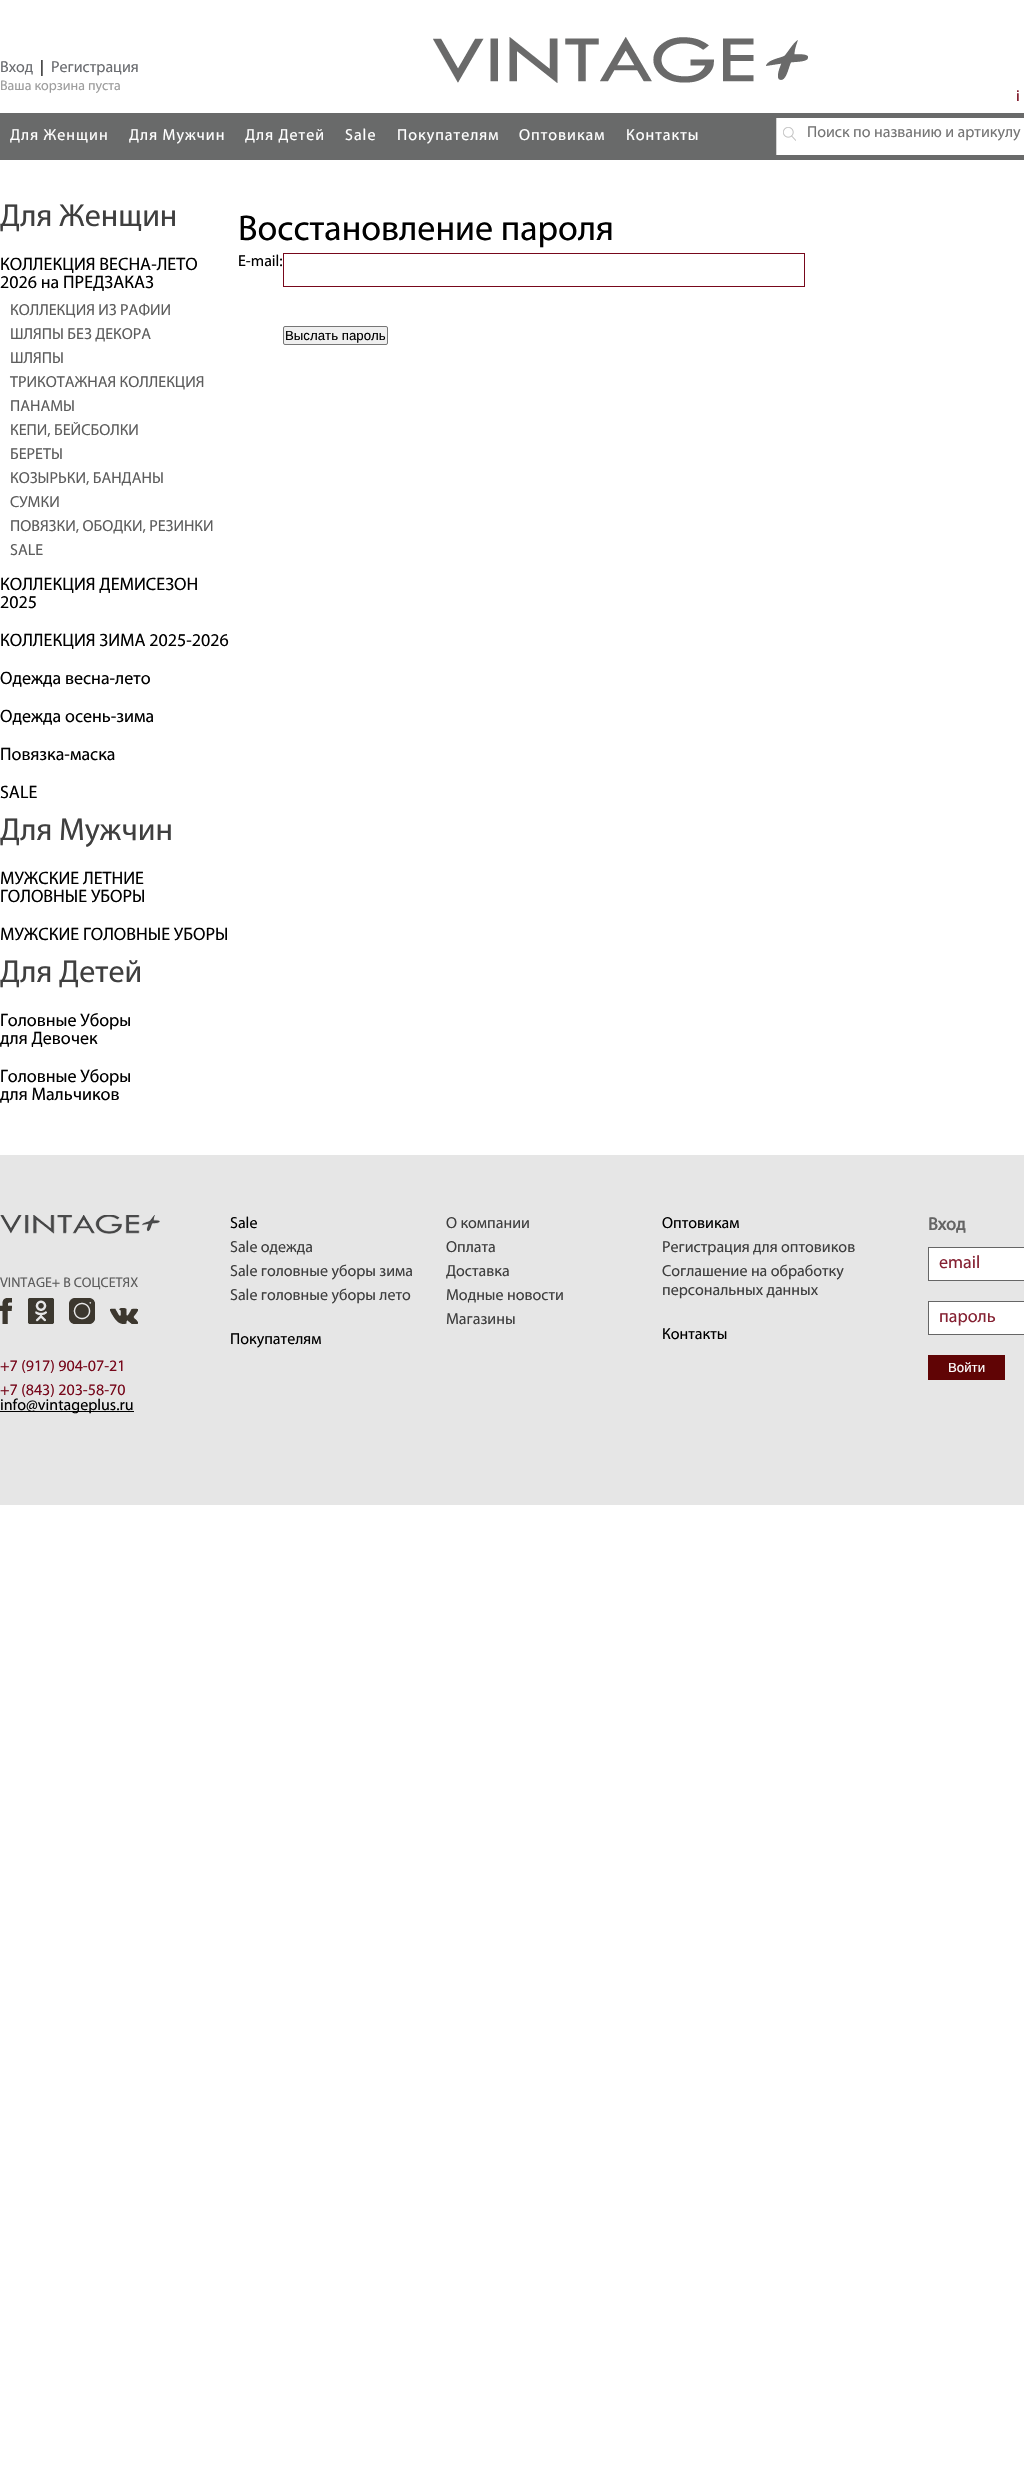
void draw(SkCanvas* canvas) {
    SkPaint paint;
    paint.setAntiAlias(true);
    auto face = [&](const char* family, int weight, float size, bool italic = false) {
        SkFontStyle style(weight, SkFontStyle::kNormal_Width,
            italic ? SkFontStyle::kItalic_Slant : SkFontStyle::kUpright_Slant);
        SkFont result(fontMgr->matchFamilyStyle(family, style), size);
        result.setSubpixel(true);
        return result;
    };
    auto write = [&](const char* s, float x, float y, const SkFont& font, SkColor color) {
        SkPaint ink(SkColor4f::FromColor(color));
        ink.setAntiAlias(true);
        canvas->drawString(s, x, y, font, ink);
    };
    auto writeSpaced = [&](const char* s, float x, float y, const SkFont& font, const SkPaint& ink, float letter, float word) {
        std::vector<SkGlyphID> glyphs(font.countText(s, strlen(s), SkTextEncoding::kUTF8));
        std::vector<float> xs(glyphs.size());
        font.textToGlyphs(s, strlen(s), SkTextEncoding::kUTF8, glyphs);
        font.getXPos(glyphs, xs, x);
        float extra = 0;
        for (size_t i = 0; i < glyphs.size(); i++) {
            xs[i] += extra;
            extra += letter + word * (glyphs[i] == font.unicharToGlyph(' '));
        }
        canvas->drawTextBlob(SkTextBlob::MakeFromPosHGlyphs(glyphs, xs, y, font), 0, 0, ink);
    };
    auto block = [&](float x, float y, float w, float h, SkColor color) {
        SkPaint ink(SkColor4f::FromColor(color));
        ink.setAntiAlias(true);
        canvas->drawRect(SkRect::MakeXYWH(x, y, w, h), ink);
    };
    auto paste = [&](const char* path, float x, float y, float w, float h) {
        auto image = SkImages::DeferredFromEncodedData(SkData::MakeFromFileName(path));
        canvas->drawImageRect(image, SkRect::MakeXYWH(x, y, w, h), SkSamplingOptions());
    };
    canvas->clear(SK_ColorWHITE);
    paste("pic1.png", 0, 2, 1024, 158);
    auto kFont1 = face("Myriad", 400, 16);
    write("Вход", 0, 72, kFont1, SkColorSetRGB(106, 108, 112));
    write("|", 40, 72, kFont1, SK_ColorBLACK);
    write("Регистрация", 51, 72, kFont1, SkColorSetRGB(106, 108, 112));
    auto kFont2 = face("Myriad", 400, 14);
    write("Ваша корзина пуста", 0, 90, kFont2, SkColorSetRGB(157, 157, 157));
    paste("pic2.png", 433, 37, 375, 46);
    write("i", 1016, 101, kFont1, SkColorSetRGB(119, 8, 27));
    paint.setColor(SK_ColorWHITE);
    writeSpaced("Для Женщин", 10, 140, kFont1, paint, 1, 0);
    writeSpaced("Для Мужчин", 129, 140, kFont1, paint, 1, 0);
    writeSpaced("Для Детей", 245, 140, kFont1, paint, 1, 0);
    writeSpaced("Sale", 345, 140, kFont1, paint, 1, 0);
    writeSpaced("Покупателям", 397, 140, kFont1, paint, 1, 0);
    writeSpaced("Оптовикам", 519, 140, kFont1, paint, 1, 0);
    writeSpaced("Контакты", 626, 140, kFont1, paint, 1, 0);
    block(777, 118, 247, 37, SK_ColorWHITE);
    block(776, 118, 1, 37, SkColorSetRGB(212, 212, 212));
    paste("pic3.png", 783, 127, 13, 14);
    write("Поиск по названию и артикулу", 807, 137, kFont1, SkColorSetRGB(117, 117, 117));
    auto kFont3 = face("Myriad", 400, 32);
    write("Для Женщин", 0, 226, kFont3, SkColorSetRGB(63, 63, 63));
    auto kFont4 = face("Myriad", 400, 18);
    write("КОЛЛЕКЦИЯ ВЕСНА-ЛЕТО", 0, 270, kFont4, SK_ColorBLACK);
    write("2026 на ПРЕДЗАКАЗ", 0, 288, kFont4, SK_ColorBLACK);
    write("КОЛЛЕКЦИЯ ИЗ РАФИИ", 10, 315, kFont1, SkColorSetRGB(93, 93, 93));
    write("ШЛЯПЫ БЕЗ ДЕКОРА", 10, 339, kFont1, SkColorSetRGB(93, 93, 93));
    write("ШЛЯПЫ", 10, 363, kFont1, SkColorSetRGB(93, 93, 93));
    write("ТРИКОТАЖНАЯ КОЛЛЕКЦИЯ", 10, 387, kFont1, SkColorSetRGB(93, 93, 93));
    write("ПАНАМЫ", 10, 411, kFont1, SkColorSetRGB(93, 93, 93));
    write("КЕПИ, БЕЙСБОЛКИ", 10, 435, kFont1, SkColorSetRGB(93, 93, 93));
    write("БЕРЕТЫ", 10, 459, kFont1, SkColorSetRGB(93, 93, 93));
    write("КОЗЫРЬКИ, БАНДАНЫ", 10, 483, kFont1, SkColorSetRGB(93, 93, 93));
    write("СУМКИ", 10, 507, kFont1, SkColorSetRGB(93, 93, 93));
    write("ПОВЯЗКИ, ОБОДКИ, РЕЗИНКИ", 10, 531, kFont1, SkColorSetRGB(93, 93, 93));
    write("SALE", 10, 555, kFont1, SkColorSetRGB(93, 93, 93));
    write("КОЛЛЕКЦИЯ ДЕМИСЕЗОН", 0, 590, kFont4, SK_ColorBLACK);
    write("2025", 0, 608, kFont4, SK_ColorBLACK);
    write("КОЛЛЕКЦИЯ ЗИМА 2025-2026", 0, 646, kFont4, SK_ColorBLACK);
    write("Одежда весна-лето", 0, 684, kFont4, SK_ColorBLACK);
    write("Одежда осень-зима", 0, 722, kFont4, SK_ColorBLACK);
    write("Повязка-маска", 0, 760, kFont4, SK_ColorBLACK);
    write("SALE", 0, 798, kFont4, SK_ColorBLACK);
    write("Для Мужчин", 0, 840, kFont3, SkColorSetRGB(63, 63, 63));
    write("МУЖСКИЕ ЛЕТНИЕ", 0, 884, kFont4, SK_ColorBLACK);
    write("ГОЛОВНЫЕ УБОРЫ", 0, 902, kFont4, SK_ColorBLACK);
    write("МУЖСКИЕ ГОЛОВНЫЕ УБОРЫ", 0, 940, kFont4, SK_ColorBLACK);
    write("Для Детей", 0, 982, kFont3, SkColorSetRGB(63, 63, 63));
    write("Головные Уборы", 0, 1026, kFont4, SK_ColorBLACK);
    write("для Девочек", 0, 1044, kFont4, SK_ColorBLACK);
    write("Головные Уборы", 0, 1082, kFont4, SK_ColorBLACK);
    write("для Мальчиков", 0, 1100, kFont4, SK_ColorBLACK);
    auto kFont5 = face("Myriad", 400, 36);
    write("Восстановление пароля", 238, 240, kFont5, SK_ColorBLACK);
    write("E-mail:", 238, 266, kFont1, SK_ColorBLACK);
    paint.setStyle(SkPaint::kStroke_Style);
    paint.setStrokeWidth(1);
    paint.setColor(SkColorSetRGB(119, 8, 27));
    canvas->drawRect(SkRect::MakeXYWH(283.5f, 253.5f, 521, 33), paint);
    paint.setStyle(SkPaint::kFill_Style);
    paint.setColor(SkColorSetRGB(239, 239, 239));
    canvas->drawRoundRect(SkRect::MakeXYWH(283.5f, 326.5f, 104, 18), 1.5f, 1.5f, paint);
    paint.setStyle(SkPaint::kStroke_Style);
    paint.setColor(SkColorSetRGB(118, 118, 118));
    canvas->drawRoundRect(SkRect::MakeXYWH(283.5f, 326.5f, 104, 18), 1.5f, 1.5f, paint);
    auto kFont6 = face("Liberation Sans", 400, 13.25f);
    write("Выслать пароль", 285, 340, kFont6, SK_ColorBLACK);
    block(0, 1155, 1024, 350, SkColorSetRGB(230, 230, 230));
    paste("pic4.png", 0, 1215, 160, 19);
    write("VINTAGE+ В СОЦСЕТЯХ", 0, 1287, kFont2, SkColorSetRGB(93, 93, 93));
    paste("pic5.png", 0, 1298, 12, 26);
    paste("pic6.png", 28, 1298, 26, 26);
    paste("pic7.png", 69, 1298, 26, 26);
    paste("pic8.png", 110, 1308, 28, 16);
    write("+7 (917) 904-07-21", 0, 1371, kFont1, SkColorSetRGB(119, 8, 27));
    write("+7 (843) 203-58-70", 0, 1395, kFont1, SkColorSetRGB(119, 8, 27));
    block(0, 1411, 134, 1, SK_ColorBLACK);
    write("info@vintageplus.ru", 0, 1410, kFont1, SK_ColorBLACK);
    write("Sale", 230, 1228, kFont1, SK_ColorBLACK);
    write("О компании", 446, 1228, kFont1, SkColorSetRGB(63, 63, 63));
    write("Оптовикам", 662, 1228, kFont1, SK_ColorBLACK);
    write("Sale одежда", 230, 1252, kFont1, SkColorSetRGB(63, 63, 63));
    write("Оплата", 446, 1252, kFont1, SkColorSetRGB(63, 63, 63));
    write("Регистрация для оптовиков", 662, 1252, kFont1, SkColorSetRGB(63, 63, 63));
    write("Sale головные уборы зима", 230, 1276, kFont1, SkColorSetRGB(63, 63, 63));
    write("Доставка", 446, 1276, kFont1, SkColorSetRGB(63, 63, 63));
    write("Соглашение на обработку", 662, 1276, kFont1, SkColorSetRGB(63, 63, 63));
    write("персональных данных", 662, 1295, kFont1, SkColorSetRGB(63, 63, 63));
    write("Sale головные уборы лето", 230, 1300, kFont1, SkColorSetRGB(63, 63, 63));
    write("Модные новости", 446, 1300, kFont1, SkColorSetRGB(63, 63, 63));
    write("Магазины", 446, 1324, kFont1, SkColorSetRGB(63, 63, 63));
    write("Покупателям", 230, 1344, kFont1, SK_ColorBLACK);
    write("Контакты", 662, 1339, kFont1, SK_ColorBLACK);
    auto kFont7 = face("Myriad", 700, 18);
    write("Вход", 928, 1230, kFont7, SkColorSetRGB(100, 100, 100));
    paint.setStyle(SkPaint::kFill_Style);
    paint.setColor(SK_ColorWHITE);
    canvas->drawRect(SkRect::MakeXYWH(928.5f, 1247.5f, 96, 33), paint);
    paint.setStyle(SkPaint::kStroke_Style);
    paint.setColor(SkColorSetRGB(102, 102, 102));
    canvas->drawRect(SkRect::MakeXYWH(928.5f, 1247.5f, 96, 33), paint);
    write("email", 939, 1268, kFont4, SkColorSetRGB(133, 33, 50));
    paint.setStyle(SkPaint::kFill_Style);
    paint.setColor(SK_ColorWHITE);
    canvas->drawRect(SkRect::MakeXYWH(928.5f, 1301.5f, 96, 33), paint);
    paint.setStyle(SkPaint::kStroke_Style);
    paint.setColor(SkColorSetRGB(102, 102, 102));
    canvas->drawRect(SkRect::MakeXYWH(928.5f, 1301.5f, 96, 33), paint);
    write("пароль", 939, 1322, kFont4, SkColorSetRGB(133, 33, 50));
    block(928, 1355, 77, 25, SkColorSetRGB(96, 4, 5));
    write("Войти", 948, 1372, kFont6, SK_ColorWHITE);
}
